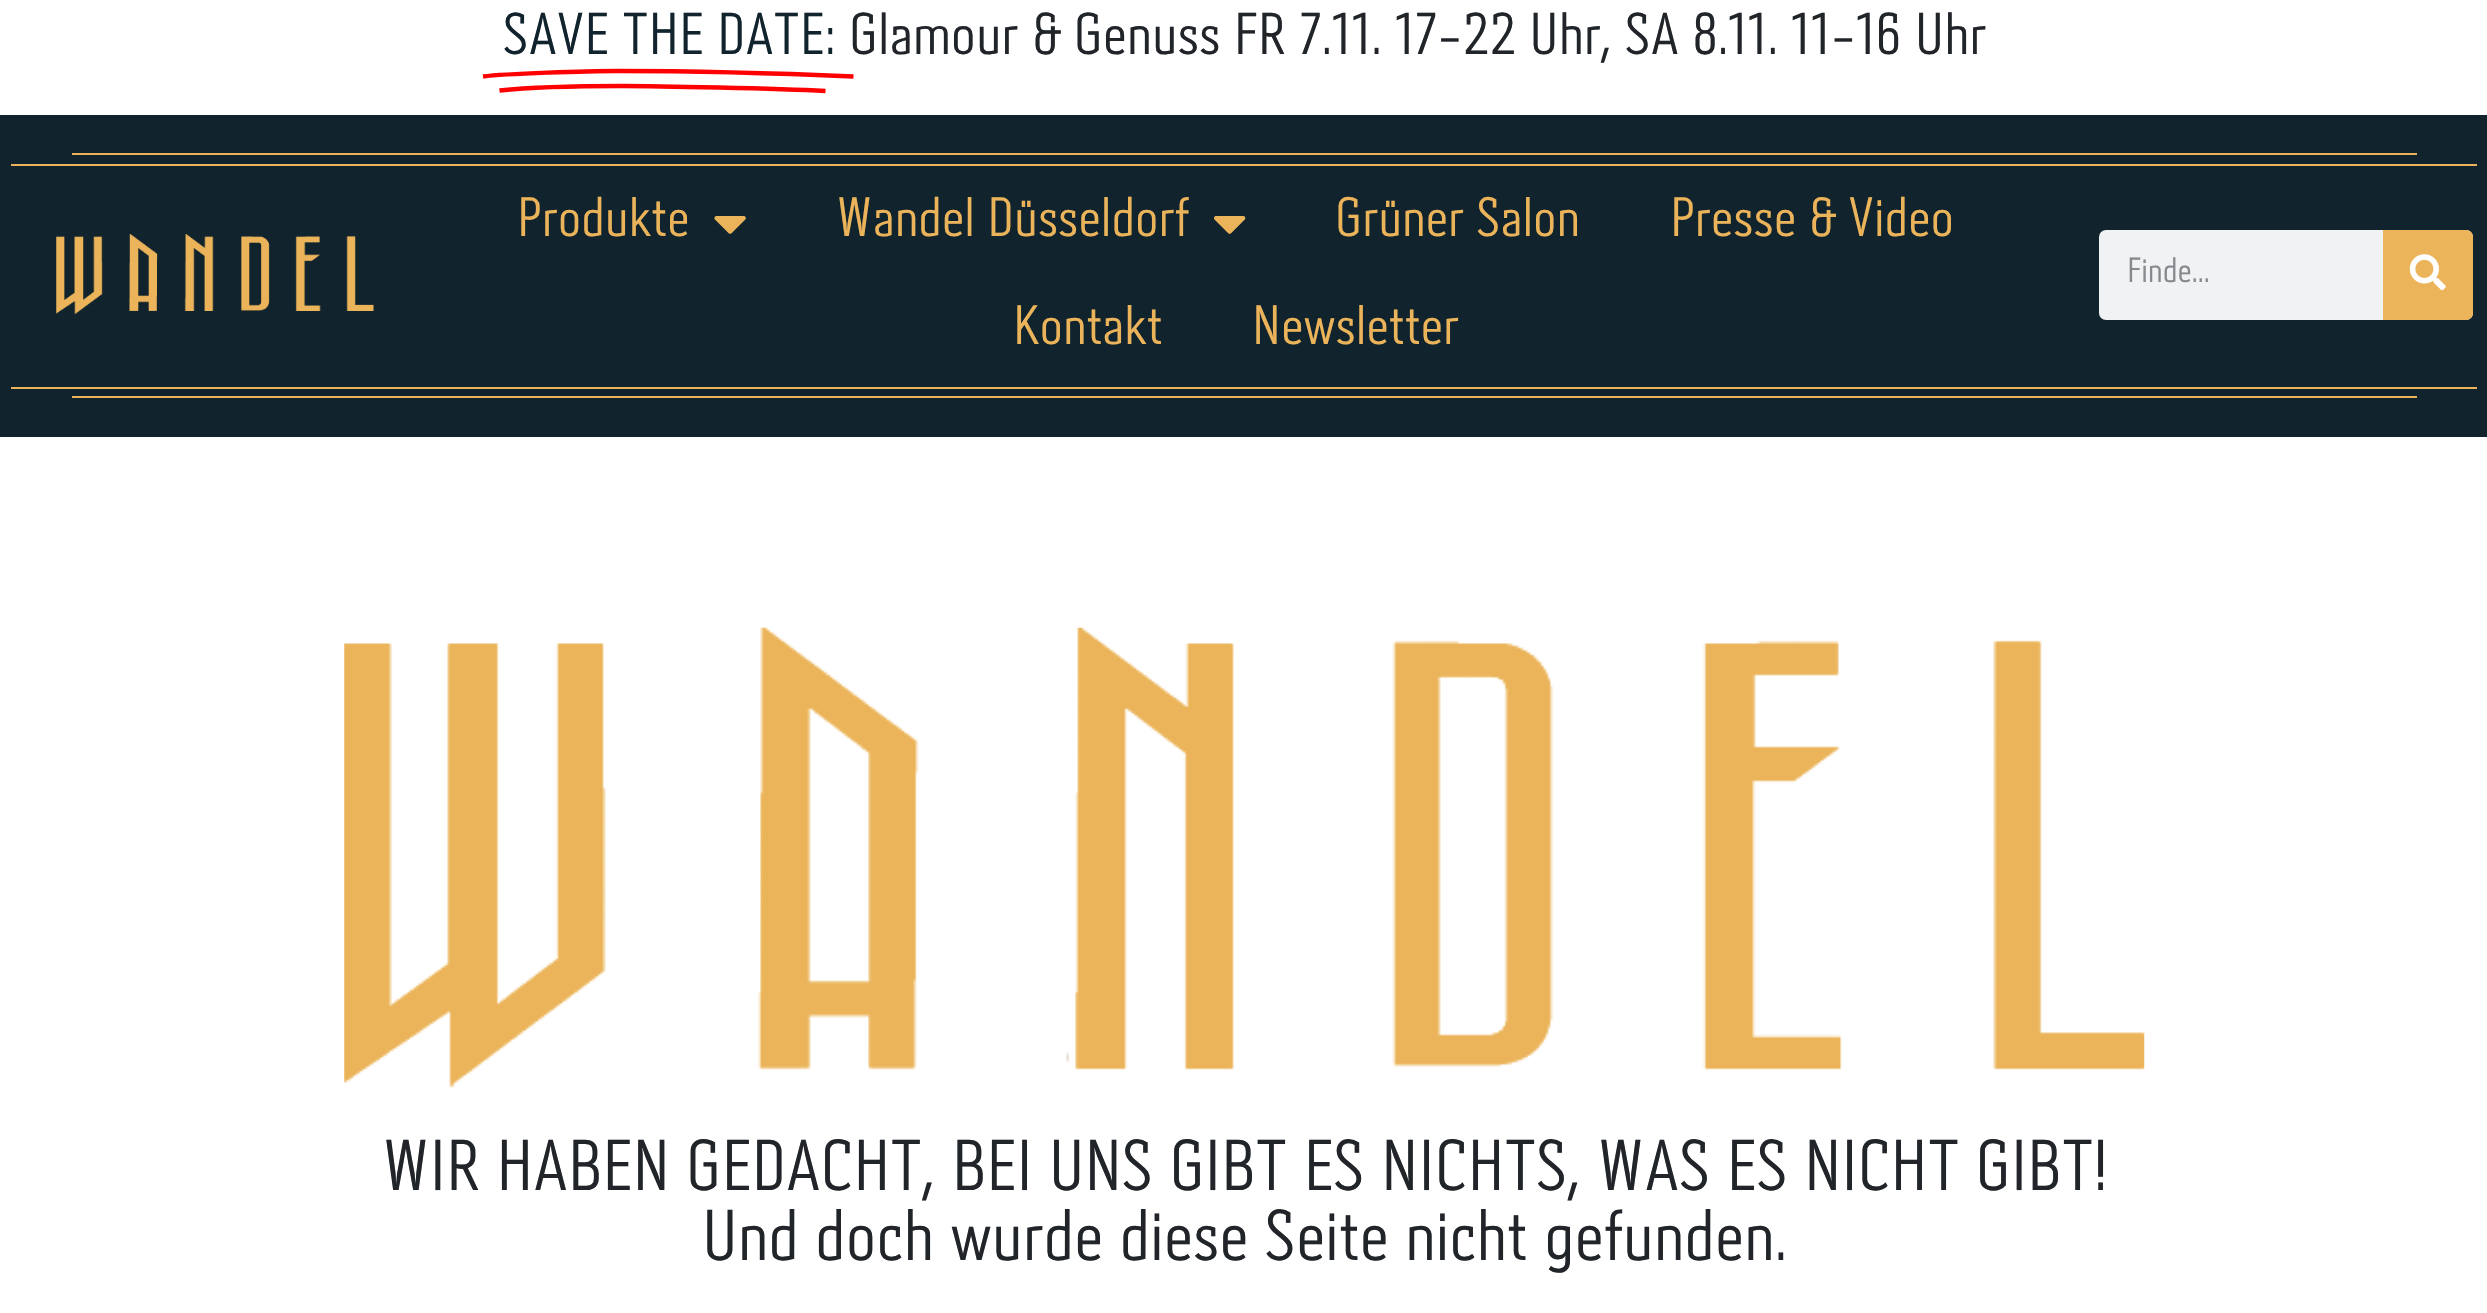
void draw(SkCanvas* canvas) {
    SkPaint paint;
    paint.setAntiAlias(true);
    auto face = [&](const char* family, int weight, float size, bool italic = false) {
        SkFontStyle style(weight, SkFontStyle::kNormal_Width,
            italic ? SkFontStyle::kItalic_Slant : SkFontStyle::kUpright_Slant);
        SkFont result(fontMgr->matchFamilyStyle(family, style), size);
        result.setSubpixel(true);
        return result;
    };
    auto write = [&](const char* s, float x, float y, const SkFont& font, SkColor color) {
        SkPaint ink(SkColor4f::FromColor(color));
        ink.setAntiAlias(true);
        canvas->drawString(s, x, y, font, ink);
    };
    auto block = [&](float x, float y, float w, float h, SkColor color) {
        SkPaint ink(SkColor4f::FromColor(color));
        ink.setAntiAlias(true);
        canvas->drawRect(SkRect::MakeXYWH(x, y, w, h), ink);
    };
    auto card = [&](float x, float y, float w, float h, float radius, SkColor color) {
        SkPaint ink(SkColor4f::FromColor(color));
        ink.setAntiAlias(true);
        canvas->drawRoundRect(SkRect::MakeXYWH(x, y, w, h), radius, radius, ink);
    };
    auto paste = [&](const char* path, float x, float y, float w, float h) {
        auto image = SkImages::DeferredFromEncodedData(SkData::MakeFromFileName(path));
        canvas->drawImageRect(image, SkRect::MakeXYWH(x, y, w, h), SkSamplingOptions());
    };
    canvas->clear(SK_ColorWHITE);
    auto kFont1 = face("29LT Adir", 400, 57.6f);
    write("SAVE THE DATE:", 503, 54, kFont1, SkColorSetRGB(17, 35, 45));
    paint.setStyle(SkPaint::kStroke_Style);
    paint.setStrokeWidth(4.5f);
    paint.setColor(SkColorSetRGB(255, 0, 0));
    canvas->drawPath(SkPathBuilder().moveTo(483, 76.5f).cubicTo(506, 73.5f, 587.5f, 71, 617, 71).cubicTo(705.5f, 71, 807.5f, 74.5f, 853.5f, 76.5f).detach(), paint);
    canvas->drawPath(SkPathBuilder().moveTo(499.5f, 90.5f).cubicTo(541.5f, 86, 595, 86, 622, 86).cubicTo(657.5f, 86, 776.5f, 88.5f, 825.5f, 91).detach(), paint);
    write("Glamour & Genuss FR 7.11. 17-22 Uhr, SA 8.11. 11-16 Uhr", 849, 54, kFont1, SkColorSetRGB(33, 37, 41));
    block(0, 115, 2487, 52, SkColorSetRGB(17, 35, 45));
    block(72, 153, 2345, 2, SkColorSetRGB(235, 180, 90));
    block(11, 164, 2466, 2, SkColorSetRGB(235, 180, 90));
    block(0, 167, 2487, 270, SkColorSetRGB(17, 35, 45));
    block(11, 387, 2466, 2, SkColorSetRGB(235, 180, 90));
    block(72, 396, 2345, 2, SkColorSetRGB(235, 180, 90));
    paste("pic1.png", 56, 234, 318, 81);
    auto kFont2 = face("29LT Adir", 400, 54);
    write("Produkte", 517, 236, kFont2, SkColorSetRGB(235, 180, 90));
    paste("pic2.png", 714, 216, 32, 18);
    write("Wandel Düsseldorf", 836, 236, kFont2, SkColorSetRGB(235, 180, 90));
    paste("pic3.png", 1213, 216, 33, 18);
    write("Grüner Salon", 1335, 236, kFont2, SkColorSetRGB(235, 180, 90));
    write("Presse & Video", 1670, 236, kFont2, SkColorSetRGB(235, 180, 90));
    write("Kontakt", 1013, 344, kFont2, SkColorSetRGB(235, 180, 90));
    write("Newsletter", 1252, 344, kFont2, SkColorSetRGB(235, 180, 90));
    card(2099, 230, 374, 90, 7, SkColorSetRGB(241, 242, 243));
    auto kFont3 = face("29LT Adir", 400, 34);
    write("Finde...", 2127, 282, kFont3, SkColorSetRGB(134, 138, 142));
    paint.setStyle(SkPaint::kFill_Style);
    paint.setColor(SkColorSetRGB(235, 180, 90));
    canvas->drawPath(SkPathBuilder().moveTo(2383, 230).lineTo(2466, 230).cubicTo(2470, 230, 2473, 233, 2473, 237).lineTo(2473, 313).cubicTo(2473, 317, 2470, 320, 2466, 320).lineTo(2383, 320).close().detach(), paint);
    paste("pic4.png", 2409, 254, 37, 37);
    paste("pic5.png", 344, 627, 1801, 461);
    auto kFont4 = face("29LT Adir", 400, 70.1f);
    write("WIR HABEN GEDACHT, BEI UNS GIBT ES NICHTS, WAS ES NICHT GIBT!", 382, 1190, kFont4, SkColorSetRGB(33, 37, 41));
    write("Und doch wurde diese Seite nicht gefunden.", 702, 1260, kFont4, SkColorSetRGB(33, 37, 41));
}
